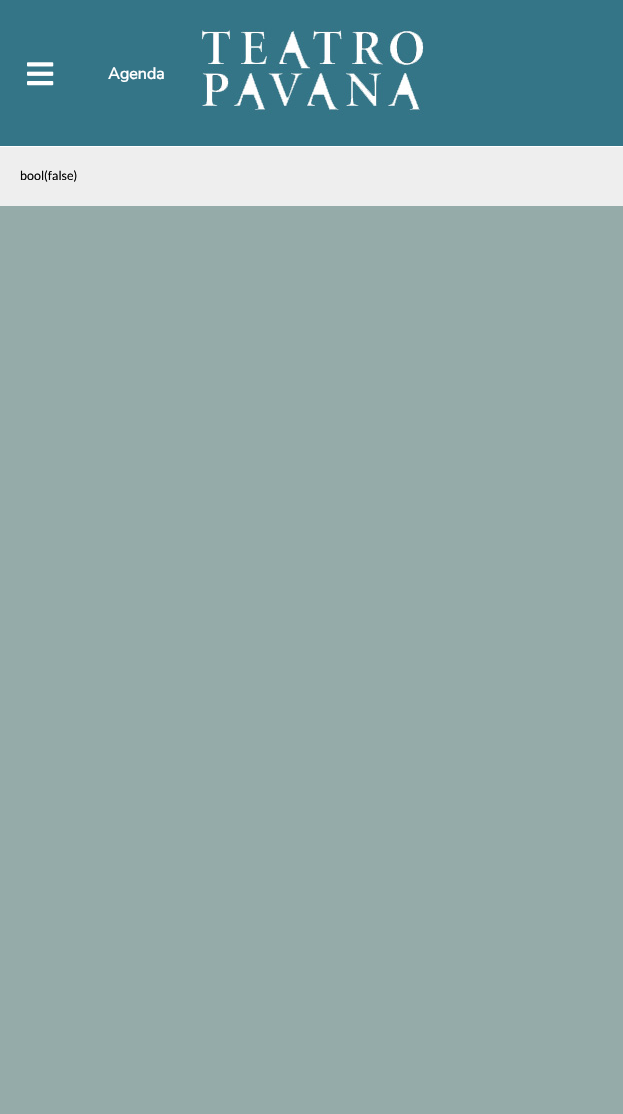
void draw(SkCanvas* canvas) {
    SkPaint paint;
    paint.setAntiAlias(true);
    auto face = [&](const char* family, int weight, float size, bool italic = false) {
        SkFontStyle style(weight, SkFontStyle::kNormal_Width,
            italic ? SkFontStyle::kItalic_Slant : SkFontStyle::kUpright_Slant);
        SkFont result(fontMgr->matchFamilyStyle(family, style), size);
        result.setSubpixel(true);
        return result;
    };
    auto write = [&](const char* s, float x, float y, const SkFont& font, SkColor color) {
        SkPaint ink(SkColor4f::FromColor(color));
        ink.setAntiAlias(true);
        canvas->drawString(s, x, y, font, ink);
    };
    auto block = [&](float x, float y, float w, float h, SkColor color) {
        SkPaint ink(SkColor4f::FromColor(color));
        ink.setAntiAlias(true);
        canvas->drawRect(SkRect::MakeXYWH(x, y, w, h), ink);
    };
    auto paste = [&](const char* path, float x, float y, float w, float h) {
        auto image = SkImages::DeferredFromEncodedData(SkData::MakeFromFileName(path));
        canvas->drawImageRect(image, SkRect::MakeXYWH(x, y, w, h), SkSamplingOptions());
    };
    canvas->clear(SkColorSetRGB(149, 171, 169));
    block(0, 0, 623, 146, SkColorSetRGB(52, 117, 135));
    block(0, 146, 623, 1, SK_ColorWHITE);
    paste("pic1.png", 27, 62, 27, 24);
    auto kFont1 = face("Nunito Sans", 700, 16);
    write("Agenda", 108, 79, kFont1, SK_ColorWHITE);
    paste("pic2.png", 200, 28, 224, 88);
    block(0, 147, 623, 59, SkColorSetRGB(238, 238, 238));
    auto kFont2 = face("Lato", 400, 12.5f);
    write("bool(false)", 20, 180, kFont2, SK_ColorBLACK);
}
